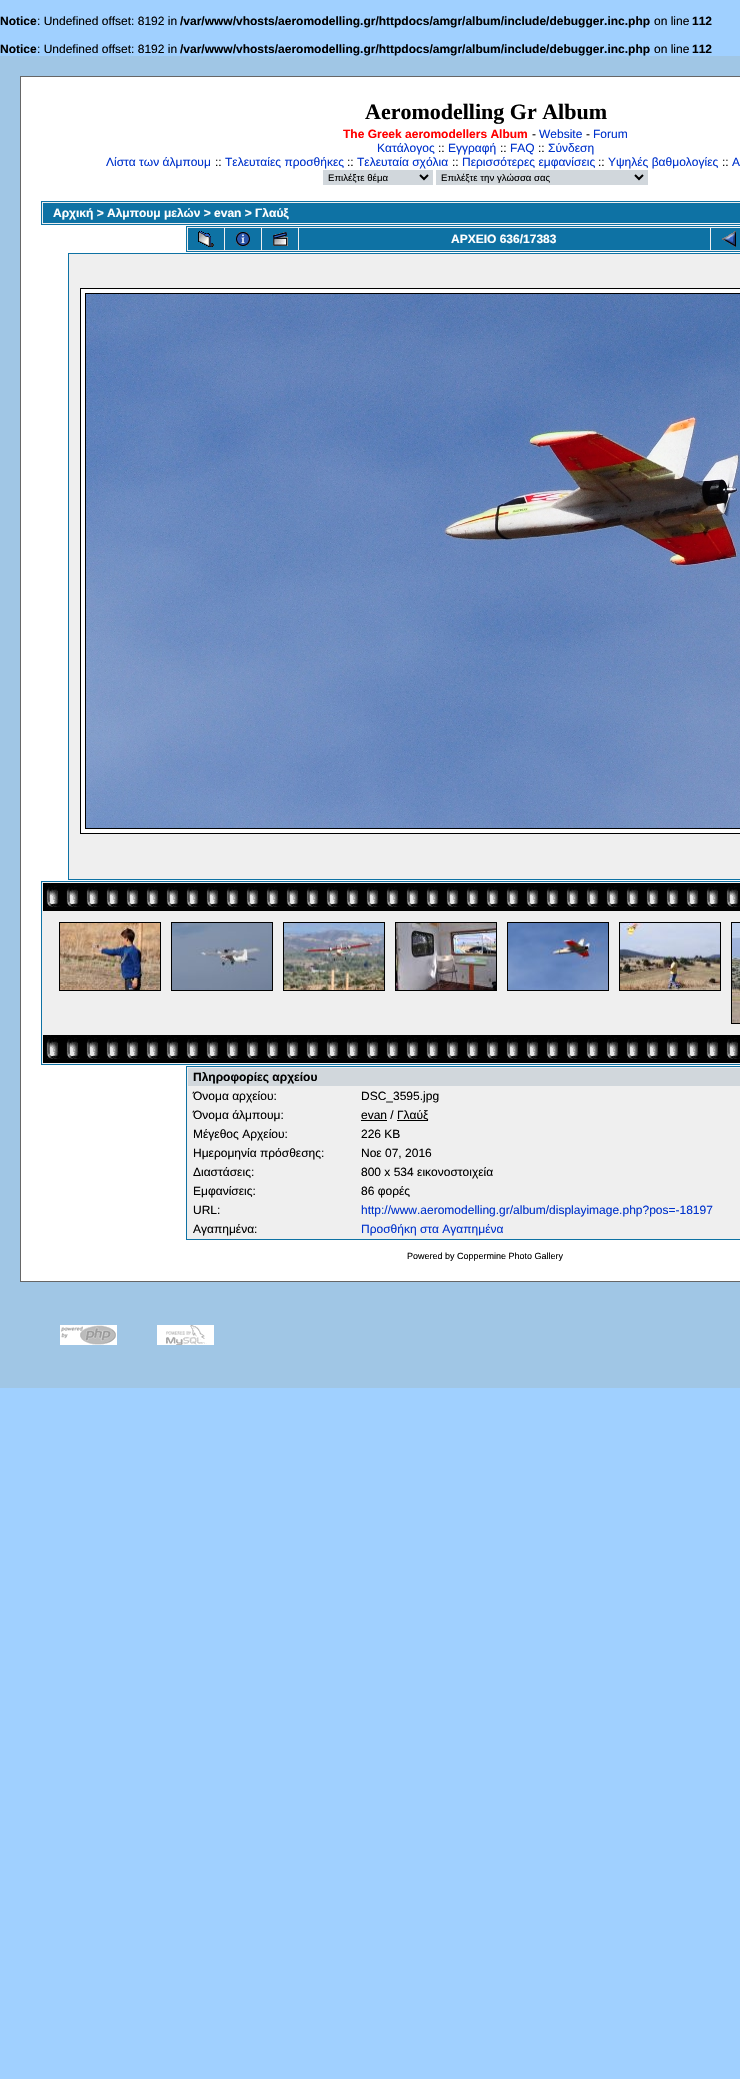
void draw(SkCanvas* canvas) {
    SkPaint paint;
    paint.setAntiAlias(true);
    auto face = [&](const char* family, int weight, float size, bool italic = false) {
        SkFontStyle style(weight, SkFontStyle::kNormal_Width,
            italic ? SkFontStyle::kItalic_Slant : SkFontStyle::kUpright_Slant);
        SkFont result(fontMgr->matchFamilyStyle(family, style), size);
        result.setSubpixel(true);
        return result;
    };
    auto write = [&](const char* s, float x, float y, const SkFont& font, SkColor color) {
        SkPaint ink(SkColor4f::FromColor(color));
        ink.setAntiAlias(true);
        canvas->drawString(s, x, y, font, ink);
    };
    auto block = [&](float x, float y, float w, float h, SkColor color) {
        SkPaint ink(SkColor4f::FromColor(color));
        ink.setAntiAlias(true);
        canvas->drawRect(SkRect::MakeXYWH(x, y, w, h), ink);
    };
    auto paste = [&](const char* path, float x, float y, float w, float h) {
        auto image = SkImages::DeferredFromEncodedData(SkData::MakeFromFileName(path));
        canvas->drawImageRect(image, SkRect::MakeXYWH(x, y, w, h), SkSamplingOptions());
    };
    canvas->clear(SkColorSetRGB(160, 208, 255));
    auto kFont1 = face("Liberation Sans", 700, 12);
    write("Notice", 0, 25, kFont1, SK_ColorBLACK);
    auto kFont2 = face("Liberation Sans", 400, 12);
    write(": Undefined offset: 8192 in", 37, 25, kFont2, SK_ColorBLACK);
    write("/var/www/vhosts/aeromodelling.gr/httpdocs/amgr/album/include/debugger.inc.php", 180, 25, kFont1, SK_ColorBLACK);
    write("on line", 654, 25, kFont2, SK_ColorBLACK);
    write("112", 692, 25, kFont1, SK_ColorBLACK);
    write("Notice", 0, 53, kFont1, SK_ColorBLACK);
    write(": Undefined offset: 8192 in", 37, 53, kFont2, SK_ColorBLACK);
    write("/var/www/vhosts/aeromodelling.gr/httpdocs/amgr/album/include/debugger.inc.php", 180, 53, kFont1, SK_ColorBLACK);
    write("on line", 654, 53, kFont2, SK_ColorBLACK);
    write("112", 692, 53, kFont1, SK_ColorBLACK);
    block(0, 56, 740, 1332, SkColorSetRGB(160, 198, 229));
    paint.setColor(SK_ColorWHITE);
    canvas->drawRect(SkRect::MakeXYWH(20.5f, 76.5f, 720, 1205), paint);
    paint.setStyle(SkPaint::kStroke_Style);
    paint.setStrokeWidth(1);
    paint.setColor(SkColorSetRGB(102, 102, 102));
    canvas->drawRect(SkRect::MakeXYWH(20.5f, 76.5f, 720, 1205), paint);
    auto kFont3 = face("Liberation Serif", 700, 22);
    write("Aeromodelling Gr Album", 365, 119, kFont3, SK_ColorBLACK);
    write("The Greek aeromodellers Album", 343, 138, kFont1, SkColorSetRGB(255, 0, 0));
    write("-", 532, 138, kFont2, SK_ColorBLACK);
    write("Website", 539, 138, kFont2, SkColorSetRGB(0, 51, 204));
    write("-", 586, 138, kFont2, SK_ColorBLACK);
    write("Forum", 593, 138, kFont2, SkColorSetRGB(0, 51, 204));
    write("Κατάλογος", 377, 152, kFont2, SkColorSetRGB(0, 51, 204));
    write("::", 438, 152, kFont2, SK_ColorBLACK);
    write("Εγγραφή", 448, 152, kFont2, SkColorSetRGB(0, 51, 204));
    write("::", 500, 152, kFont2, SK_ColorBLACK);
    write("FAQ", 510, 152, kFont2, SkColorSetRGB(0, 51, 204));
    write("::", 538, 152, kFont2, SK_ColorBLACK);
    write("Σύνδεση", 548, 152, kFont2, SkColorSetRGB(0, 51, 204));
    write("Λίστα των άλμπουμ", 106, 166, kFont2, SkColorSetRGB(0, 51, 204));
    write("::", 215, 166, kFont2, SK_ColorBLACK);
    write("Τελευταίες προσθήκες", 225, 166, kFont2, SkColorSetRGB(0, 51, 204));
    write("::", 347, 166, kFont2, SK_ColorBLACK);
    write("Τελευταία σχόλια", 357, 166, kFont2, SkColorSetRGB(0, 51, 204));
    write("::", 452, 166, kFont2, SK_ColorBLACK);
    write("Περισσότερες εμφανίσεις", 462, 166, kFont2, SkColorSetRGB(0, 51, 204));
    write("::", 598, 166, kFont2, SK_ColorBLACK);
    write("Υψηλές βαθμολογίες", 608, 166, kFont2, SkColorSetRGB(0, 51, 204));
    write("::", 722, 166, kFont2, SK_ColorBLACK);
    write("Α", 732, 166, kFont2, SkColorSetRGB(0, 51, 204));
    block(323, 170, 110, 15, SkColorSetRGB(209, 215, 220));
    paint.setStrokeWidth(2);
    paint.setColor(SK_ColorBLACK);
    canvas->drawPath(SkPathBuilder().moveTo(420, 175).lineTo(424, 179).lineTo(428, 175).detach(), paint);
    auto kFont4 = face("Liberation Sans", 400, 9.6f);
    write("Επιλέξτε θέμα", 328, 181, kFont4, SK_ColorBLACK);
    block(436, 170, 212, 15, SkColorSetRGB(209, 215, 220));
    canvas->drawPath(SkPathBuilder().moveTo(635, 175).lineTo(639, 179).lineTo(643, 175).detach(), paint);
    write("Επιλέξτε την γλώσσα σας", 441, 181, kFont4, SK_ColorBLACK);
    paint.setStyle(SkPaint::kFill_Style);
    paint.setColor(SkColorSetRGB(239, 239, 239));
    canvas->drawRect(SkRect::MakeXYWH(41.5f, 201.5f, 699, 23), paint);
    paint.setStyle(SkPaint::kStroke_Style);
    paint.setStrokeWidth(1);
    paint.setColor(SkColorSetRGB(14, 114, 164));
    canvas->drawRect(SkRect::MakeXYWH(41.5f, 201.5f, 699, 23), paint);
    block(43, 203, 697, 20, SkColorSetRGB(14, 114, 164));
    write("Αρχική > Αλμπουμ μελών > evan > Γλαύξ", 53, 217, kFont1, SK_ColorWHITE);
    paint.setStyle(SkPaint::kFill_Style);
    paint.setColor(SkColorSetRGB(239, 239, 239));
    canvas->drawRect(SkRect::MakeXYWH(186.5f, 226.5f, 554, 25), paint);
    paint.setStyle(SkPaint::kStroke_Style);
    paint.setColor(SkColorSetRGB(14, 114, 164));
    canvas->drawRect(SkRect::MakeXYWH(186.5f, 226.5f, 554, 25), paint);
    block(188, 228, 36, 22, SkColorSetRGB(14, 114, 164));
    paste("pic1.png", 198, 231, 16, 16);
    block(225, 228, 36, 22, SkColorSetRGB(14, 114, 164));
    paste("pic2.png", 236, 232, 14, 14);
    block(262, 228, 36, 22, SkColorSetRGB(14, 114, 164));
    paste("pic3.png", 273, 232, 15, 14);
    block(299, 228, 411, 22, SkColorSetRGB(14, 114, 164));
    write("ΑΡΧΕΙΟ 636/17383", 451, 243, kFont1, SK_ColorWHITE);
    block(711, 228, 29, 22, SkColorSetRGB(14, 114, 164));
    paste("pic4.png", 722, 231, 14, 16);
    paint.setStyle(SkPaint::kFill_Style);
    paint.setColor(SkColorSetRGB(239, 239, 239));
    canvas->drawRect(SkRect::MakeXYWH(68.5f, 253.5f, 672, 626), paint);
    paint.setStyle(SkPaint::kStroke_Style);
    paint.setColor(SkColorSetRGB(14, 114, 164));
    canvas->drawRect(SkRect::MakeXYWH(68.5f, 253.5f, 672, 626), paint);
    paint.setStyle(SkPaint::kFill_Style);
    paint.setColor(SK_ColorWHITE);
    canvas->drawRect(SkRect::MakeXYWH(80.5f, 288.5f, 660, 545), paint);
    paint.setStyle(SkPaint::kStroke_Style);
    paint.setColor(SK_ColorBLACK);
    canvas->drawRect(SkRect::MakeXYWH(80.5f, 288.5f, 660, 545), paint);
    canvas->drawRect(SkRect::MakeXYWH(85.5f, 293.5f, 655, 535), paint);
    paste("pic5.png", 86, 294, 654, 534);
    paint.setStyle(SkPaint::kFill_Style);
    paint.setColor(SkColorSetRGB(239, 239, 239));
    canvas->drawRect(SkRect::MakeXYWH(41.5f, 881.5f, 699, 183), paint);
    paint.setStyle(SkPaint::kStroke_Style);
    paint.setColor(SkColorSetRGB(14, 114, 164));
    canvas->drawRect(SkRect::MakeXYWH(41.5f, 881.5f, 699, 183), paint);
    paste("pic6.png", 43, 883, 697, 28);
    paint.setColor(SK_ColorBLACK);
    canvas->drawRect(SkRect::MakeXYWH(59.5f, 922.5f, 101, 68), paint);
    paste("pic7.png", 60, 923, 100, 67);
    canvas->drawRect(SkRect::MakeXYWH(171.5f, 922.5f, 101, 68), paint);
    paste("pic8.png", 172, 923, 100, 67);
    canvas->drawRect(SkRect::MakeXYWH(283.5f, 922.5f, 101, 68), paint);
    paste("pic9.png", 284, 923, 100, 67);
    canvas->drawRect(SkRect::MakeXYWH(395.5f, 922.5f, 101, 68), paint);
    paste("pic10.png", 396, 923, 100, 67);
    canvas->drawRect(SkRect::MakeXYWH(507.5f, 922.5f, 101, 68), paint);
    paste("pic11.png", 508, 923, 100, 67);
    canvas->drawRect(SkRect::MakeXYWH(619.5f, 922.5f, 101, 68), paint);
    paste("pic12.png", 620, 923, 100, 67);
    canvas->drawRect(SkRect::MakeXYWH(731.5f, 922.5f, 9, 101), paint);
    paste("pic13.png", 732, 923, 8, 100);
    paste("pic6.png", 43, 1035, 697, 28);
    paint.setStyle(SkPaint::kFill_Style);
    paint.setColor(SkColorSetRGB(239, 239, 239));
    canvas->drawRect(SkRect::MakeXYWH(186.5f, 1066.5f, 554, 173), paint);
    paint.setStyle(SkPaint::kStroke_Style);
    paint.setColor(SkColorSetRGB(14, 114, 164));
    canvas->drawRect(SkRect::MakeXYWH(186.5f, 1066.5f, 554, 173), paint);
    block(188, 1068, 552, 18, SkColorSetRGB(209, 215, 220));
    write("Πληροφορίες αρχείου", 193, 1081, kFont1, SK_ColorBLACK);
    write("Όνομα αρχείου:", 193, 1100, kFont2, SK_ColorBLACK);
    write("DSC_3595.jpg", 361, 1100, kFont2, SK_ColorBLACK);
    write("Όνομα άλμπουμ:", 193, 1119, kFont2, SK_ColorBLACK);
    write("evan /", 361, 1119, kFont2, SK_ColorBLACK);
    block(361, 1120, 26, 1, SK_ColorBLACK);
    block(397, 1120, 31, 1, SK_ColorBLACK);
    write("Γλαύξ", 397, 1119, kFont2, SK_ColorBLACK);
    write("Μέγεθος Αρχείου:", 193, 1138, kFont2, SK_ColorBLACK);
    write("226 KB", 361, 1138, kFont2, SK_ColorBLACK);
    write("Ημερομηνία πρόσθεσης:", 193, 1157, kFont2, SK_ColorBLACK);
    write("Noε 07, 2016", 361, 1157, kFont2, SK_ColorBLACK);
    write("Διαστάσεις:", 193, 1176, kFont2, SK_ColorBLACK);
    write("800 x 534 εικονοστοιχεία", 361, 1176, kFont2, SK_ColorBLACK);
    write("Εμφανίσεις:", 193, 1195, kFont2, SK_ColorBLACK);
    write("86 φορές", 361, 1195, kFont2, SK_ColorBLACK);
    write("URL:", 193, 1214, kFont2, SK_ColorBLACK);
    write("http://www.aeromodelling.gr/album/displayimage.php?pos=-18197", 361, 1214, kFont2, SkColorSetRGB(0, 51, 204));
    write("Αγαπημένα:", 193, 1233, kFont2, SK_ColorBLACK);
    write("Προσθήκη στα Αγαπημένα", 361, 1233, kFont2, SkColorSetRGB(0, 51, 204));
    auto kFont5 = face("Liberation Sans", 400, 9);
    write("Powered by Coppermine Photo Gallery", 407, 1259, kFont5, SK_ColorBLACK);
    paste("pic14.png", 60, 1325, 57, 20);
    paste("pic15.png", 157, 1325, 57, 20);
}
